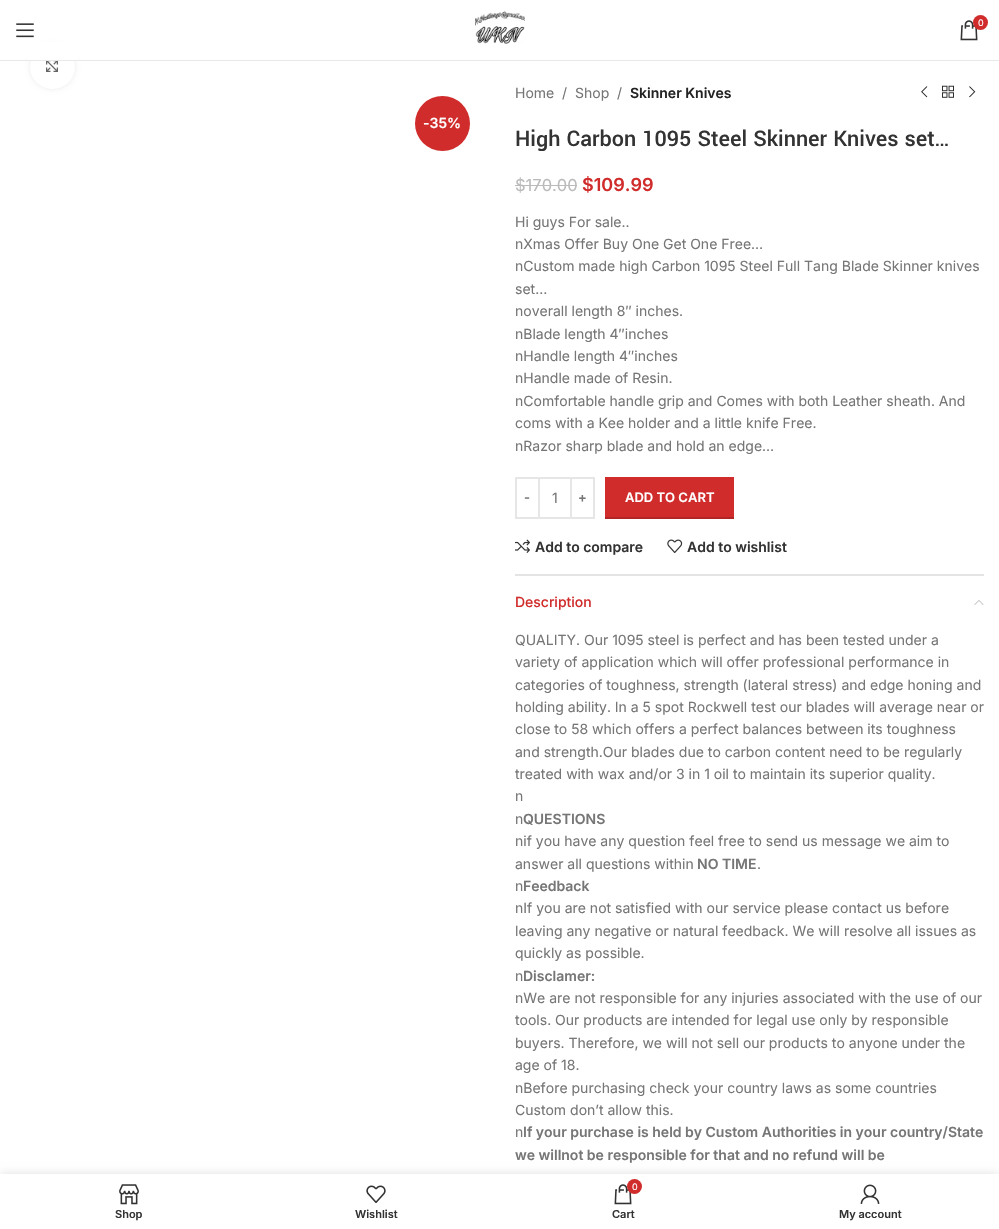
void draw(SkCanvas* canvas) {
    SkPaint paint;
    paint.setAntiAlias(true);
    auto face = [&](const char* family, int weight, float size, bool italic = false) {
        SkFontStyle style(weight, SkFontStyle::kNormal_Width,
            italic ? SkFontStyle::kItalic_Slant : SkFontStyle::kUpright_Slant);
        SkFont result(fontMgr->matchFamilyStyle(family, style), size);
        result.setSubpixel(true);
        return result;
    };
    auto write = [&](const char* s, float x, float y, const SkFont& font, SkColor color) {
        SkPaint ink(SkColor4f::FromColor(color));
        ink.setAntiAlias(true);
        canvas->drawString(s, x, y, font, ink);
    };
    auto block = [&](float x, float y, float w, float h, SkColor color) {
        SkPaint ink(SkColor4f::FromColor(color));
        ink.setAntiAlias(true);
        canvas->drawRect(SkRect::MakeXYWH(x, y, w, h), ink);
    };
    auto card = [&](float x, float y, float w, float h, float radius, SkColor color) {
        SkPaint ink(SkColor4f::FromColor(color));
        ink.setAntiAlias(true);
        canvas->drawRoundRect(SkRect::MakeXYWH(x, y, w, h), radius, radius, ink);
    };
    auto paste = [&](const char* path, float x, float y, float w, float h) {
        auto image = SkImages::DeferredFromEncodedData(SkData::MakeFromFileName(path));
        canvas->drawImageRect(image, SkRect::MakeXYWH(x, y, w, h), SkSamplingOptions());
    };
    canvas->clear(SK_ColorWHITE);
    paint.setColor(SkColorSetARGB(20, 0, 0, 0));
    paint.setMaskFilter(SkMaskFilter::MakeBlur(kNormal_SkBlurStyle, 2.5f));
    canvas->drawRoundRect(SkRect::MakeXYWH(30, 45, 45, 44), 22, 22, paint);
    paint.setMaskFilter(nullptr);
    card(30, 45, 45, 44, 22, SK_ColorWHITE);
    block(28, 42, 49, 18, SK_ColorWHITE);
    block(0, 60, 999, 1, SkColorSetRGB(232, 232, 232));
    paste("pic1.png", 16, 23, 18, 15);
    paste("pic2.png", 475, 11, 50, 33);
    paste("pic3.png", 960, 20, 18, 21);
    paint.setColor(SkColorSetRGB(209, 44, 44));
    canvas->drawCircle(980.5f, 22.5f, 7.5f, paint);
    auto kFont1 = face("Inter", 400, 9);
    write("0", 978, 26, kFont1, SK_ColorWHITE);
    paste("pic4.png", 46, 61, 12, 11);
    canvas->drawCircle(442.5f, 123.5f, 27.5f, paint);
    auto kFont2 = face("Inter", 600, 14);
    write("-35%", 423, 128, kFont2, SK_ColorWHITE);
    auto kFont3 = face("Inter", 400, 14);
    write("Home", 515, 98, kFont3, SkColorSetRGB(118, 118, 118));
    write("/", 562, 98, kFont3, SkColorSetRGB(118, 118, 118));
    write("Shop", 575, 98, kFont3, SkColorSetRGB(118, 118, 118));
    write("/", 617, 98, kFont3, SkColorSetRGB(118, 118, 118));
    write("Skinner Knives", 630, 98, kFont2, SkColorSetRGB(36, 36, 36));
    paste("pic5.png", 921, 86, 7, 12);
    paste("pic6.png", 942, 85, 12, 13);
    paste("pic7.png", 969, 86, 7, 12);
    auto kFont4 = face("Yantramanav", 500, 24);
    write("High Carbon 1095 Steel Skinner Knives set…", 515, 146, kFont4, SkColorSetRGB(51, 51, 51));
    auto kFont5 = face("Inter", 400, 16.5f);
    write("$170.00", 515, 191, kFont5, SkColorSetRGB(187, 187, 187));
    block(515, 185, 62, 1, SkColorSetRGB(187, 187, 187));
    auto kFont6 = face("Inter", 600, 18);
    write("$109.99", 582, 191, kFont6, SkColorSetRGB(209, 44, 44));
    write("Hi guys For sale..", 515, 227, kFont3, SkColorSetRGB(118, 118, 118));
    write("nXmas Offer Buy One Get One Free…", 515, 249, kFont3, SkColorSetRGB(118, 118, 118));
    write("nCustom made high Carbon 1095 Steel Full Tang Blade Skinner knives", 515, 271, kFont3, SkColorSetRGB(118, 118, 118));
    write("set…", 515, 294, kFont3, SkColorSetRGB(118, 118, 118));
    write("noverall length 8″ inches.", 515, 316, kFont3, SkColorSetRGB(118, 118, 118));
    write("nBlade length 4″inches", 515, 339, kFont3, SkColorSetRGB(118, 118, 118));
    write("nHandle length 4″inches", 515, 361, kFont3, SkColorSetRGB(118, 118, 118));
    write("nHandle made of Resin.", 515, 383, kFont3, SkColorSetRGB(118, 118, 118));
    write("nComfortable handle grip and Comes with both Leather sheath. And", 515, 406, kFont3, SkColorSetRGB(118, 118, 118));
    write("coms with a Kee holder and a little knife Free.", 515, 428, kFont3, SkColorSetRGB(118, 118, 118));
    write("nRazor sharp blade and hold an edge…", 515, 451, kFont3, SkColorSetRGB(118, 118, 118));
    paint.setStyle(SkPaint::kStroke_Style);
    paint.setStrokeWidth(2);
    paint.setColor(SkColorSetRGB(230, 230, 230));
    canvas->drawRect(SkRect::MakeXYWH(516, 478, 23, 40), paint);
    auto kFont7 = face("Inter", 600, 13);
    write("-", 524, 502, kFont7, SkColorSetRGB(118, 118, 118));
    block(540, 477, 30, 2, SkColorSetRGB(230, 230, 230));
    block(540, 517, 30, 2, SkColorSetRGB(230, 230, 230));
    write("1", 552, 503, kFont3, SkColorSetRGB(118, 118, 118));
    canvas->drawRect(SkRect::MakeXYWH(571, 478, 23, 40), paint);
    write("+", 578, 502, kFont7, SkColorSetRGB(118, 118, 118));
    block(605, 477, 129, 40, SkColorSetRGB(209, 44, 44));
    block(605, 517, 129, 2, SkColorSetRGB(178, 37, 37));
    write("ADD TO CART", 625, 502, kFont7, SK_ColorWHITE);
    paste("pic8.png", 515, 539, 15, 14);
    write("Add to compare", 535, 552, kFont2, SkColorSetRGB(51, 51, 51));
    paste("pic9.png", 667, 539, 16, 14);
    write("Add to wishlist", 687, 552, kFont2, SkColorSetRGB(51, 51, 51));
    block(515, 574, 469, 2, SkColorSetRGB(228, 228, 228));
    auto kFont8 = face("Inter", 500, 14);
    write("Description", 515, 607, kFont8, SkColorSetRGB(209, 44, 44));
    paste("pic10.png", 974, 600, 10, 5);
    write("QUALITY. Our 1095 steel is perfect and has been tested under a", 515, 645, kFont3, SkColorSetRGB(118, 118, 118));
    write("variety of application which will offer professional performance in", 515, 667, kFont3, SkColorSetRGB(118, 118, 118));
    write("categories of toughness, strength (lateral stress) and edge honing and", 515, 690, kFont3, SkColorSetRGB(118, 118, 118));
    write("holding ability. In a 5 spot Rockwell test our blades will average near or", 515, 712, kFont3, SkColorSetRGB(118, 118, 118));
    write("close to 58 which offers a perfect balances between its toughness", 515, 734, kFont3, SkColorSetRGB(118, 118, 118));
    write("and strength.Our blades due to carbon content need to be regularly", 515, 757, kFont3, SkColorSetRGB(118, 118, 118));
    write("treated with wax and/or 3 in 1 oil to maintain its superior quality.", 515, 779, kFont3, SkColorSetRGB(118, 118, 118));
    write("n", 515, 801, kFont3, SkColorSetRGB(118, 118, 118));
    write("n", 515, 824, kFont3, SkColorSetRGB(118, 118, 118));
    write("QUESTIONS", 523, 824, kFont2, SkColorSetRGB(118, 118, 118));
    write("nif you have any question feel free to send us message we aim to", 515, 846, kFont3, SkColorSetRGB(118, 118, 118));
    write("answer all questions within", 515, 869, kFont3, SkColorSetRGB(118, 118, 118));
    write("NO TIME", 697, 869, kFont2, SkColorSetRGB(118, 118, 118));
    write(".", 757, 869, kFont3, SkColorSetRGB(118, 118, 118));
    write("n", 515, 891, kFont3, SkColorSetRGB(118, 118, 118));
    write("Feedback", 523, 891, kFont2, SkColorSetRGB(118, 118, 118));
    write("nIf you are not satisfied with our service please contact us before", 515, 913, kFont3, SkColorSetRGB(118, 118, 118));
    write("leaving any negative or natural feedback. We will resolve all issues as", 515, 936, kFont3, SkColorSetRGB(118, 118, 118));
    write("quickly as possible.", 515, 958, kFont3, SkColorSetRGB(118, 118, 118));
    write("n", 515, 981, kFont3, SkColorSetRGB(118, 118, 118));
    write("Disclamer:", 523, 981, kFont2, SkColorSetRGB(118, 118, 118));
    write("nWe are not responsible for any injuries associated with the use of our", 515, 1003, kFont3, SkColorSetRGB(118, 118, 118));
    write("tools. Our products are intended for legal use only by responsible", 515, 1025, kFont3, SkColorSetRGB(118, 118, 118));
    write("buyers. Therefore, we will not sell our products to anyone under the", 515, 1048, kFont3, SkColorSetRGB(118, 118, 118));
    write("age of 18.", 515, 1070, kFont3, SkColorSetRGB(118, 118, 118));
    write("nBefore purchasing check your country laws as some countries", 515, 1093, kFont3, SkColorSetRGB(118, 118, 118));
    write("Custom don’t allow this.", 515, 1115, kFont3, SkColorSetRGB(118, 118, 118));
    write("n", 515, 1137, kFont3, SkColorSetRGB(118, 118, 118));
    write("If your purchase is held by Custom Authorities in your country/State", 523, 1137, kFont2, SkColorSetRGB(118, 118, 118));
    write("we willnot be responsible for that and no refund will be", 515, 1160, kFont2, SkColorSetRGB(118, 118, 118));
    paint.setStyle(SkPaint::kFill_Style);
    paint.setColor(SkColorSetARGB(31, 0, 0, 0));
    paint.setMaskFilter(SkMaskFilter::MakeBlur(kNormal_SkBlurStyle, 4.5f));
    canvas->drawRect(SkRect::MakeXYWH(0, 1174, 999, 55), paint);
    paint.setMaskFilter(nullptr);
    block(0, 1174, 999, 55, SK_ColorWHITE);
    paste("pic11.png", 119, 1184, 20, 21);
    auto kFont9 = face("Inter", 600, 11);
    write("Shop", 115, 1218, kFont9, SkColorSetRGB(51, 51, 51));
    paste("pic12.png", 366, 1185, 20, 18);
    write("Wishlist", 355, 1218, kFont9, SkColorSetRGB(51, 51, 51));
    paste("pic3.png", 614, 1184, 18, 21);
    paint.setColor(SkColorSetRGB(209, 44, 44));
    canvas->drawCircle(634.5f, 1186.5f, 7.5f, paint);
    write("0", 632, 1190, kFont1, SK_ColorWHITE);
    write("Cart", 612, 1218, kFont9, SkColorSetRGB(51, 51, 51));
    paste("pic13.png", 860, 1184, 20, 20);
    write("My account", 839, 1218, kFont9, SkColorSetRGB(51, 51, 51));
}
